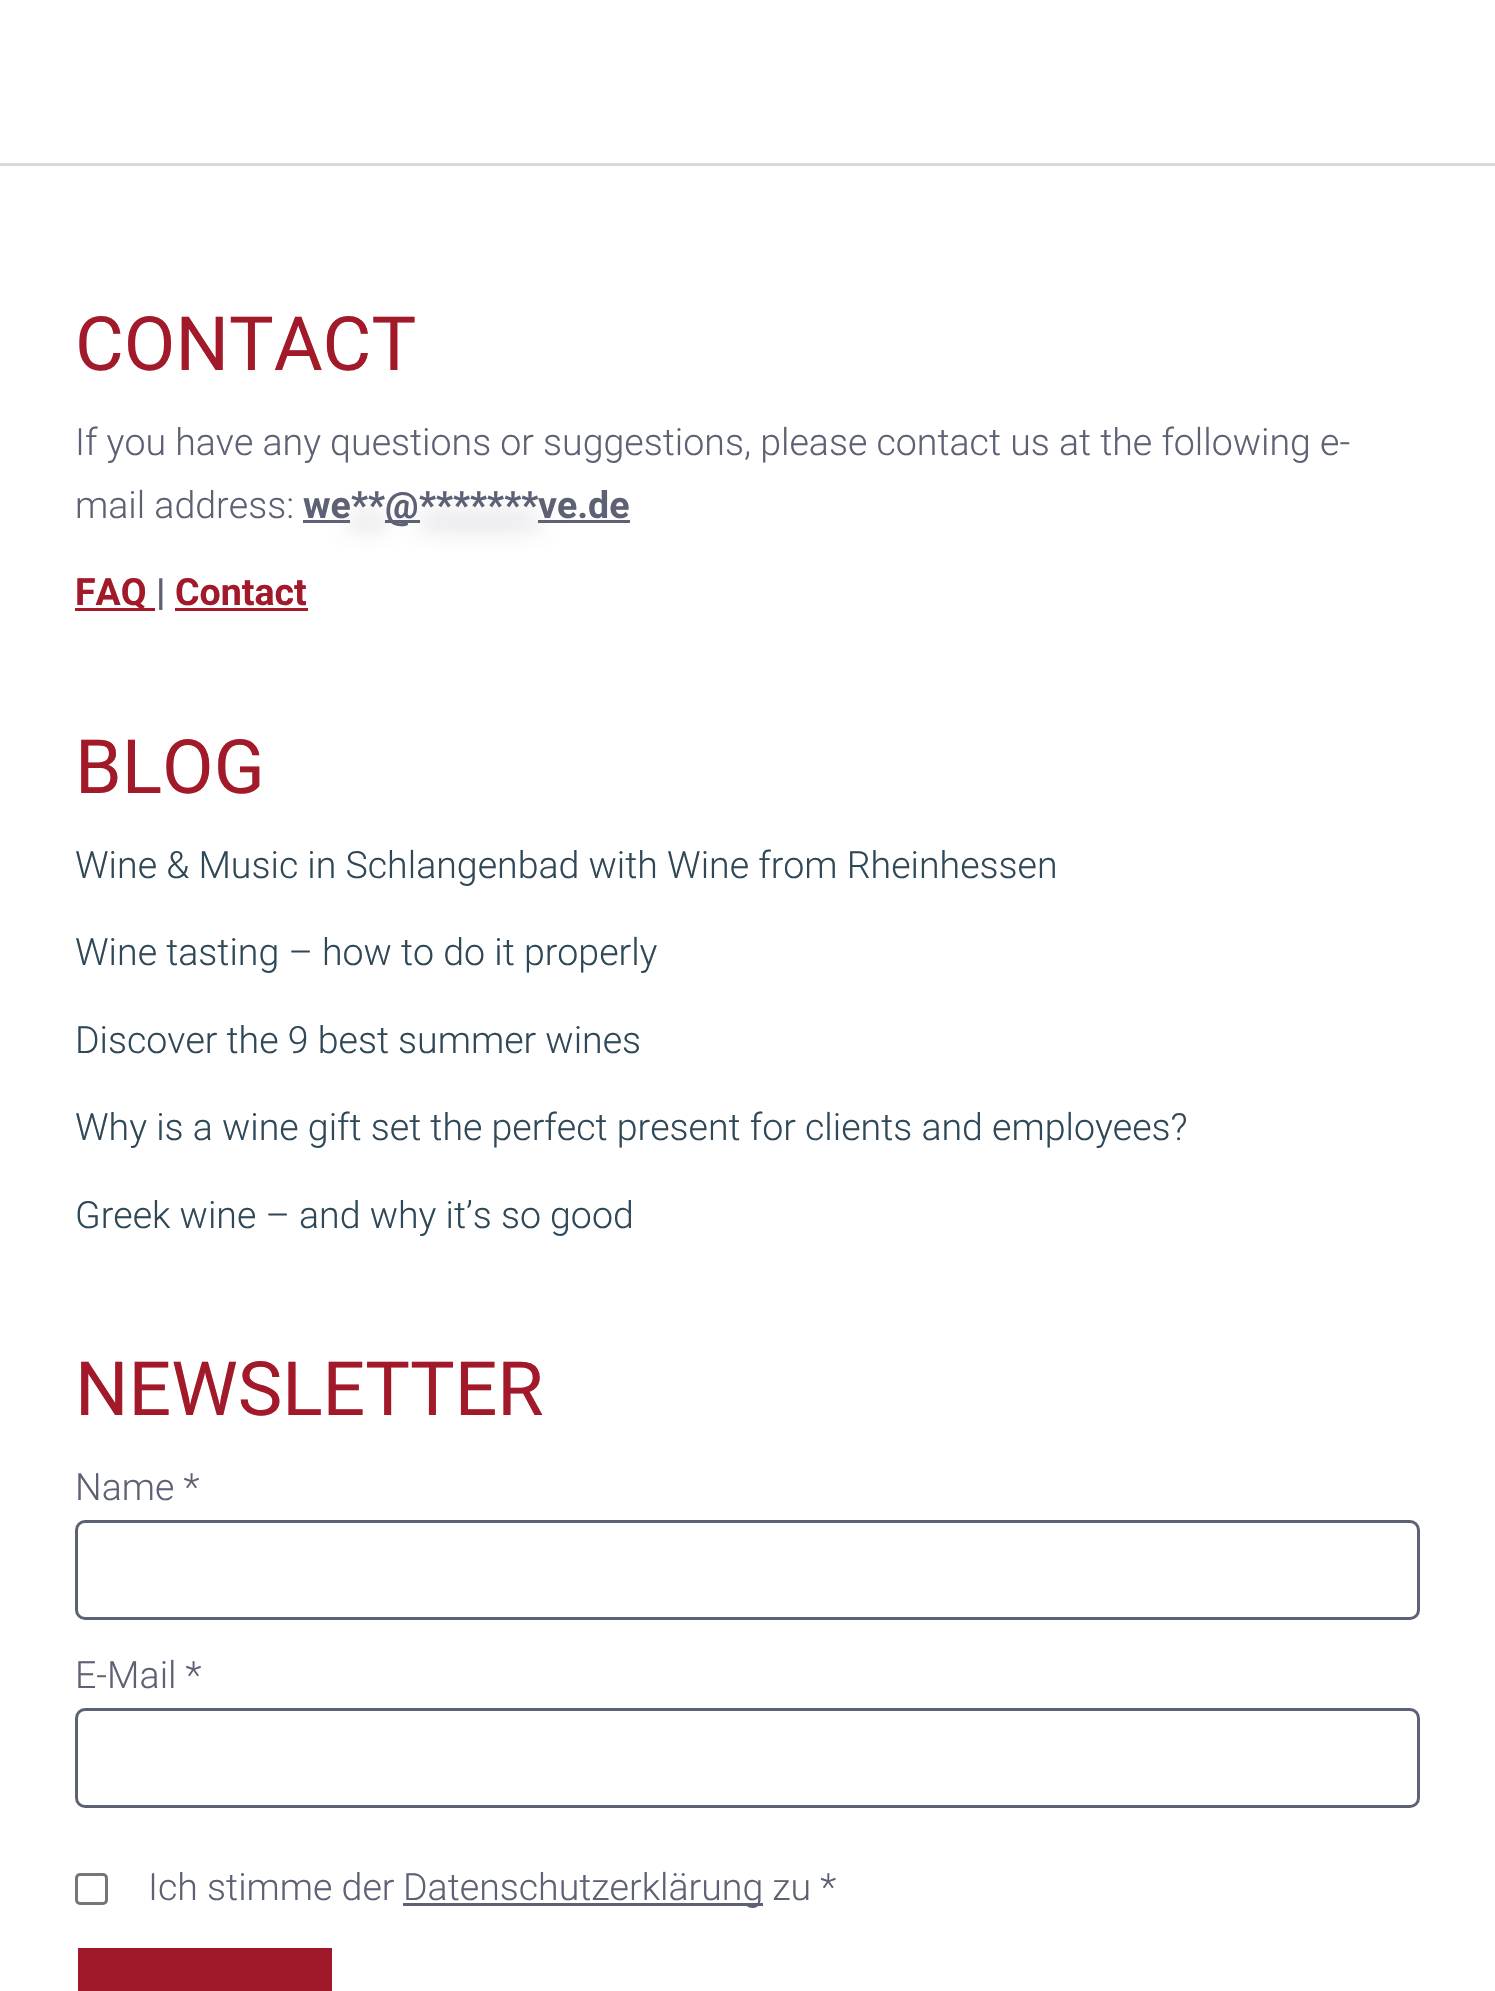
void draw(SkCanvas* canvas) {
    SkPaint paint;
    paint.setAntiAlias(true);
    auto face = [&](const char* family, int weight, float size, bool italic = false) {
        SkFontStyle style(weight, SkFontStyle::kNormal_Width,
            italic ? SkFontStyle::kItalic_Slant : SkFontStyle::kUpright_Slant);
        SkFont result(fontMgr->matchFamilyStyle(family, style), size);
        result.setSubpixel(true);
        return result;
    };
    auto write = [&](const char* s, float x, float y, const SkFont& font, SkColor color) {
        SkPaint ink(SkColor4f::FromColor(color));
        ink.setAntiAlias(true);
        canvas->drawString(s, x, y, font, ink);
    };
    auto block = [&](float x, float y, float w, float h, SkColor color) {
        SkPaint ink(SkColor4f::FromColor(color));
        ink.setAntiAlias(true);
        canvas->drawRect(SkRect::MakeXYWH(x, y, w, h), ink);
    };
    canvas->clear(SK_ColorWHITE);
    block(0, 163, 1495, 3, SkColorSetRGB(213, 218, 222));
    auto kFont1 = face("Roboto", 400, 75);
    write("CONTACT", 75, 370, kFont1, SkColorSetRGB(162, 25, 42));
    auto kFont2 = face("Roboto", 300, 37.5f);
    write("If you have any questions or suggestions, please contact us at the following e-", 75, 455, kFont2, SkColorSetRGB(92, 97, 116));
    write("mail address:", 75, 518, kFont2, SkColorSetRGB(92, 97, 116));
    auto kFont3 = face("Roboto", 700, 37.5f);
    write("we", 303, 518, kFont3, SkColorSetRGB(92, 97, 116));
    block(303, 520, 47, 3, SkColorSetRGB(92, 97, 116));
    block(385, 520, 35, 3, SkColorSetRGB(92, 97, 116));
    paint.setColor(SkColorSetRGB(92, 97, 116));
    paint.setMaskFilter(SkMaskFilter::MakeBlur(kNormal_SkBlurStyle, 12.5f));
    canvas->drawRect(SkRect::MakeXYWH(350, 520, 35, 3), paint);
    paint.setMaskFilter(nullptr);
    write("**", 351, 518, kFont3, SkColorSetRGB(92, 97, 116));
    write("@", 385, 518, kFont3, SkColorSetRGB(92, 97, 116));
    block(538, 520, 92, 3, SkColorSetRGB(92, 97, 116));
    paint.setMaskFilter(SkMaskFilter::MakeBlur(kNormal_SkBlurStyle, 12.5f));
    canvas->drawRect(SkRect::MakeXYWH(420, 520, 118, 3), paint);
    paint.setMaskFilter(nullptr);
    write("*******", 419, 518, kFont3, SkColorSetRGB(92, 97, 116));
    write("ve.de", 538, 518, kFont3, SkColorSetRGB(92, 97, 116));
    block(75, 608, 80, 3, SkColorSetRGB(162, 25, 42));
    write("FAQ", 75, 605, kFont3, SkColorSetRGB(162, 25, 42));
    write("|", 156, 605, kFont3, SkColorSetRGB(92, 97, 116));
    write("Contact", 175, 605, kFont3, SkColorSetRGB(162, 25, 42));
    block(175, 608, 133, 3, SkColorSetRGB(162, 25, 42));
    write("BLOG", 75, 793, kFont1, SkColorSetRGB(162, 25, 42));
    write("Wine & Music in Schlangenbad with Wine from Rheinhessen", 75, 878, kFont2, SkColorSetRGB(47, 72, 88));
    write("Wine tasting – how to do it properly", 75, 965, kFont2, SkColorSetRGB(47, 72, 88));
    write("Discover the 9 best summer wines", 75, 1053, kFont2, SkColorSetRGB(47, 72, 88));
    write("Why is a wine gift set the perfect present for clients and employees?", 75, 1140, kFont2, SkColorSetRGB(47, 72, 88));
    write("Greek wine – and why it’s so good", 75, 1228, kFont2, SkColorSetRGB(47, 72, 88));
    write("NEWSLETTER", 75, 1415, kFont1, SkColorSetRGB(162, 25, 42));
    write("Name *", 75, 1500, kFont2, SkColorSetRGB(92, 97, 116));
    paint.setStyle(SkPaint::kStroke_Style);
    paint.setStrokeWidth(3);
    canvas->drawRoundRect(SkRect::MakeXYWH(76.5f, 1521.5f, 1342, 97), 8.5f, 8.5f, paint);
    write("E-Mail *", 75, 1688, kFont2, SkColorSetRGB(92, 97, 116));
    canvas->drawRoundRect(SkRect::MakeXYWH(76.5f, 1709.5f, 1342, 97), 8.5f, 8.5f, paint);
    paint.setColor(SkColorSetRGB(118, 118, 118));
    canvas->drawRoundRect(SkRect::MakeXYWH(76.5f, 1874.5f, 30, 29), 3.5f, 3.5f, paint);
    write("Ich stimme der", 148, 1900, kFont2, SkColorSetRGB(92, 97, 116));
    block(403, 1903, 360, 3, SkColorSetRGB(92, 97, 116));
    write("Datenschutzerklärung zu *", 403, 1900, kFont2, SkColorSetRGB(92, 97, 116));
    paint.setStyle(SkPaint::kFill_Style);
    {
        const SkColor colors[] = {SkColorSetRGB(160, 25, 42), SkColorSetRGB(159, 25, 41)};
        const float stops[] = {0, 1};
        const SkPoint ends[] = {{205, 1948}, {205, 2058}};
        paint.setShader(SkGradientShader::MakeLinear(ends, colors, stops, 2, SkTileMode::kClamp));
        paint.setAlpha(255);
    }
    canvas->drawRect(SkRect::MakeXYWH(78, 1948, 254, 43), paint);
}
